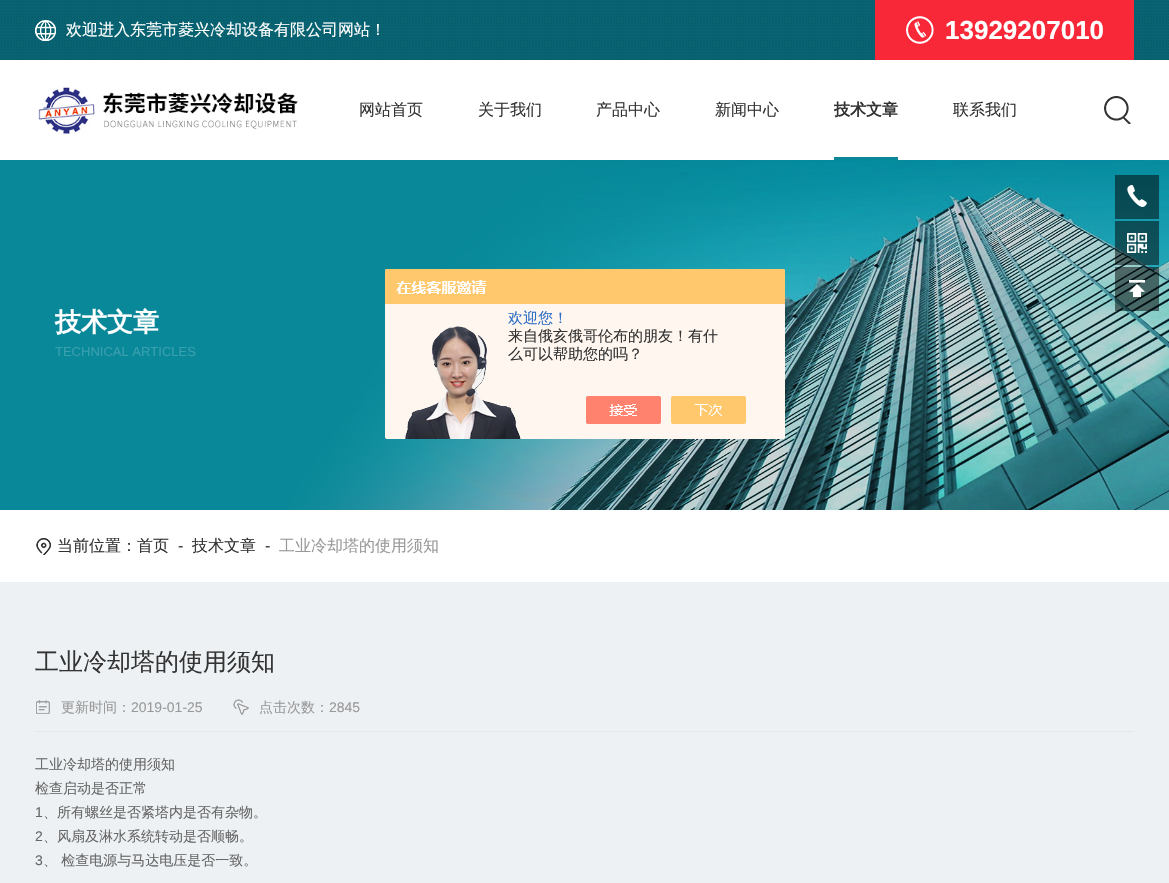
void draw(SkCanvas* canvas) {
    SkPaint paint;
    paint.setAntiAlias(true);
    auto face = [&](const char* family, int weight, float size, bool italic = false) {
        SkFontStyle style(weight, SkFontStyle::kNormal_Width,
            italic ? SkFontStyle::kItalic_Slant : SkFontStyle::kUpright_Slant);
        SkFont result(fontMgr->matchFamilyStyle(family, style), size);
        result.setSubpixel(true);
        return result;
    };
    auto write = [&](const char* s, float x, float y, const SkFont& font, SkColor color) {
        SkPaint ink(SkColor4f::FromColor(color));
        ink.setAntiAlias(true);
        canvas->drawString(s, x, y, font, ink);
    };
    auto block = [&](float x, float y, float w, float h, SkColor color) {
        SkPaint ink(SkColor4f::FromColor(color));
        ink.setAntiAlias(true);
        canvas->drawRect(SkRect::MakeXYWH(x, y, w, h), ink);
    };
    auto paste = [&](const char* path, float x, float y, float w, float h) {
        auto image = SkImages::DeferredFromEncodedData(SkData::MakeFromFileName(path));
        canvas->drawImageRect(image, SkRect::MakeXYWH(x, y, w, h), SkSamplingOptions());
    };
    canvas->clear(SK_ColorWHITE);
    paste("pic1.png", 0, 0, 1169, 60);
    paste("pic2.png", 35, 20, 21, 21);
    auto kFont1 = face("WenQuanYi Zen Hei", 500, 16);
    write("欢迎进入东莞市菱兴冷却设备有限公司网站！", 66, 35, kFont1, SK_ColorWHITE);
    block(875, 0, 259, 60, SkColorSetRGB(248, 40, 56));
    paste("pic3.png", 906, 16, 28, 28);
    auto kFont2 = face("Liberation Sans", 700, 26);
    write("13929207010", 945, 39, kFont2, SK_ColorWHITE);
    paste("pic4.png", 38, 87, 260, 47);
    write("网站首页", 359, 115, kFont1, SkColorSetRGB(51, 51, 51));
    write("关于我们", 478, 115, kFont1, SkColorSetRGB(51, 51, 51));
    write("产品中心", 596, 115, kFont1, SkColorSetRGB(51, 51, 51));
    write("新闻中心", 715, 115, kFont1, SkColorSetRGB(51, 51, 51));
    auto kFont3 = face("WenQuanYi Zen Hei", 700, 16);
    write("技术文章", 834, 115, kFont3, SkColorSetRGB(51, 51, 51));
    block(834, 157, 64, 3, SkColorSetRGB(8, 136, 152));
    write("联系我们", 953, 115, kFont1, SkColorSetRGB(51, 51, 51));
    paste("pic5.png", 1104, 96, 27, 28);
    paste("pic9.png", 0, 160, 1169, 350);
    block(1115, 175, 44, 44, SkColorSetARGB(128, 0, 0, 0));
    paste("pic6.png", 1127, 185, 20, 22);
    block(1115, 221, 44, 44, SkColorSetARGB(128, 0, 0, 0));
    paste("pic7.png", 1127, 233, 20, 20);
    block(1115, 267, 44, 44, SkColorSetARGB(128, 0, 0, 0));
    paste("pic8.png", 1129, 280, 16, 17);
    auto kFont4 = face("WenQuanYi Zen Hei", 700, 26);
    write("技术文章", 55, 331, kFont4, SK_ColorWHITE);
    auto kFont5 = face("Liberation Sans", 400, 13);
    write("TECHNICAL ARTICLES", 55, 356, kFont5, SkColorSetRGB(58, 160, 173));
    paste("pic10.png", 385, 269, 400, 170);
    auto kFont6 = face("WenQuanYi Zen Hei", 500, 15);
    write("欢迎您！", 508, 323, kFont6, SkColorSetRGB(46, 110, 198));
    write("来自俄亥俄哥伦布的朋友！有什", 508, 341, kFont6, SkColorSetRGB(51, 51, 51));
    write("么可以帮助您的吗？", 508, 359, kFont6, SkColorSetRGB(51, 51, 51));
    paste("pic11.png", 36, 538, 15, 17);
    write("当前位置：首页", 57, 551, kFont1, SkColorSetRGB(51, 51, 51));
    auto kFont7 = face("Liberation Sans", 400, 16);
    write("-", 178, 551, kFont7, SkColorSetRGB(51, 51, 51));
    write("技术文章", 192, 551, kFont1, SkColorSetRGB(51, 51, 51));
    write("-", 265, 551, kFont7, SkColorSetRGB(51, 51, 51));
    write("工业冷却塔的使用须知", 279, 551, kFont1, SkColorSetRGB(153, 153, 153));
    block(0, 582, 1169, 301, SkColorSetRGB(237, 241, 244));
    auto kFont8 = face("WenQuanYi Zen Hei", 500, 24);
    write("工业冷却塔的使用须知", 35, 670, kFont8, SkColorSetRGB(51, 51, 51));
    block(35, 731, 1099, 1, SkColorSetRGB(230, 230, 230));
    paste("pic12.png", 36, 700, 14, 14);
    auto kFont9 = face("WenQuanYi Zen Hei", 500, 14);
    write("更新时间：", 61, 712, kFont9, SkColorSetRGB(153, 153, 153));
    auto kFont10 = face("Liberation Sans", 400, 14);
    write("2019-01-25", 131, 712, kFont10, SkColorSetRGB(153, 153, 153));
    paste("pic13.png", 233, 699, 16, 16);
    write("点击次数：", 259, 712, kFont9, SkColorSetRGB(153, 153, 153));
    write("2845", 329, 712, kFont10, SkColorSetRGB(153, 153, 153));
    write("工业冷却塔的使用须知", 35, 769, kFont9, SkColorSetRGB(102, 102, 102));
    write("检查启动是否正常", 35, 793, kFont9, SkColorSetRGB(102, 102, 102));
    write("1", 35, 817, kFont10, SkColorSetRGB(102, 102, 102));
    write("、所有螺丝是否紧塔内是否有杂物。", 43, 817, kFont9, SkColorSetRGB(102, 102, 102));
    write("2", 35, 841, kFont10, SkColorSetRGB(102, 102, 102));
    write("、风扇及淋水系统转动是否顺畅。", 43, 841, kFont9, SkColorSetRGB(102, 102, 102));
    write("3", 35, 865, kFont10, SkColorSetRGB(102, 102, 102));
    write("、 检查电源与马达电压是否一致。", 43, 865, kFont9, SkColorSetRGB(102, 102, 102));
}
